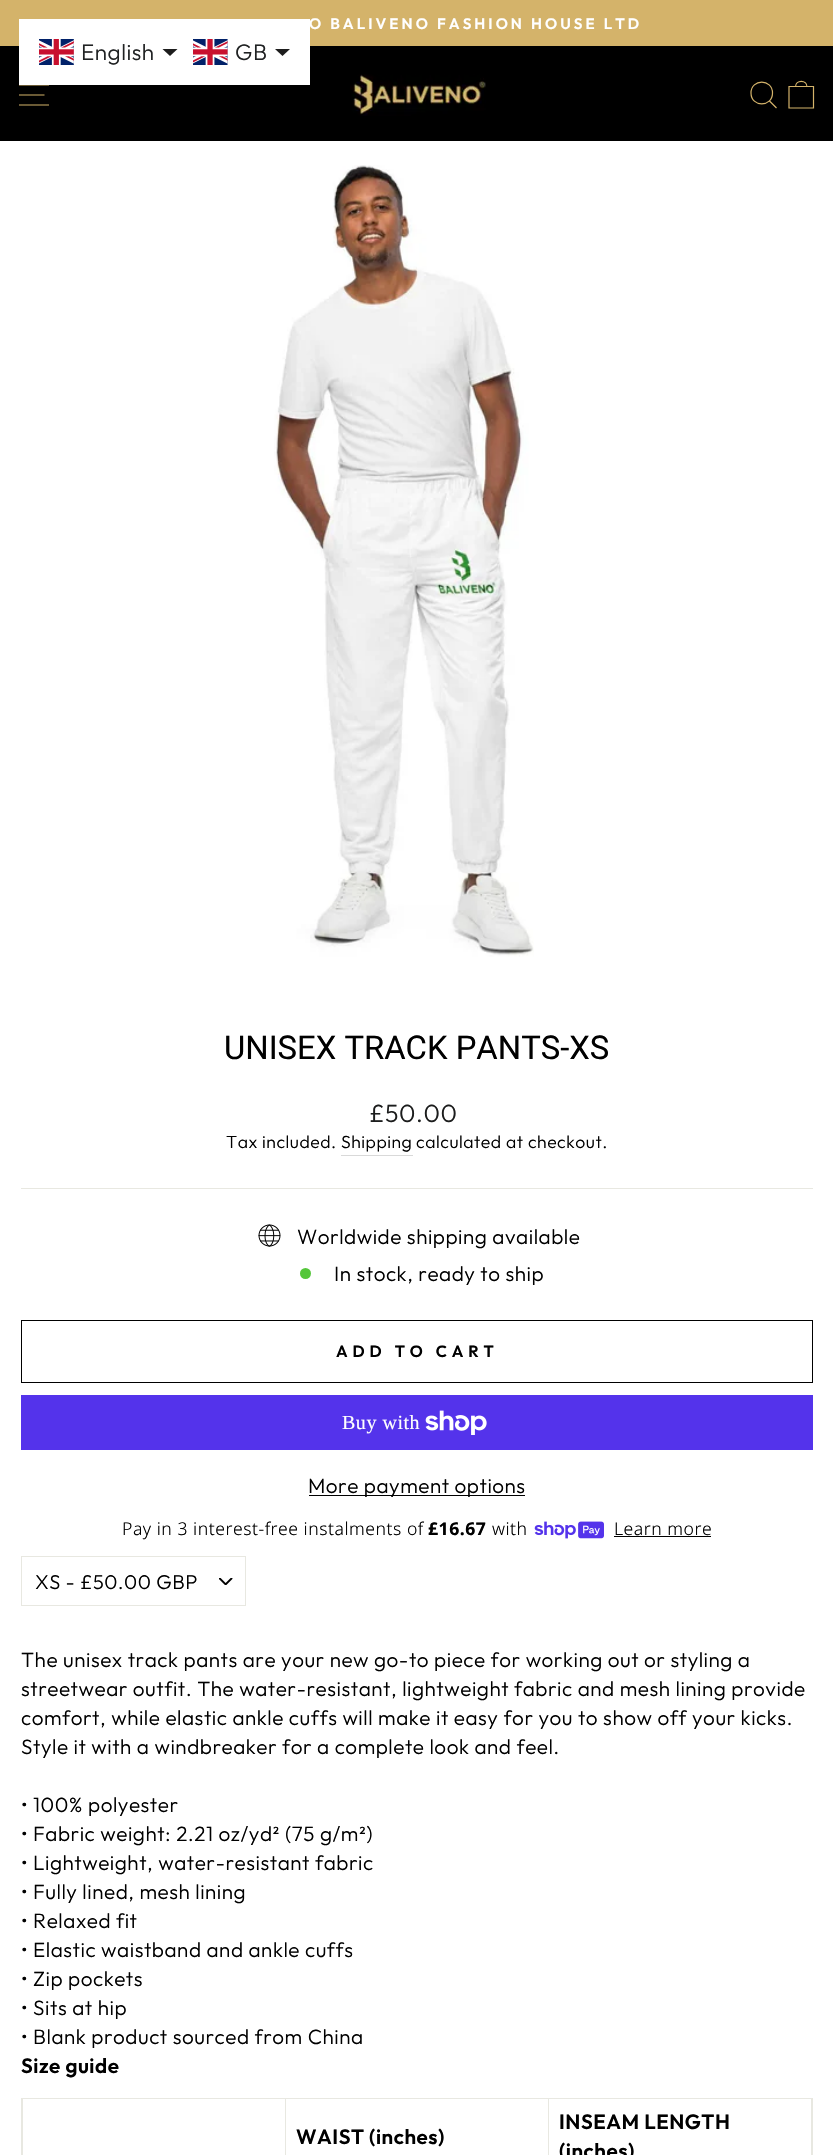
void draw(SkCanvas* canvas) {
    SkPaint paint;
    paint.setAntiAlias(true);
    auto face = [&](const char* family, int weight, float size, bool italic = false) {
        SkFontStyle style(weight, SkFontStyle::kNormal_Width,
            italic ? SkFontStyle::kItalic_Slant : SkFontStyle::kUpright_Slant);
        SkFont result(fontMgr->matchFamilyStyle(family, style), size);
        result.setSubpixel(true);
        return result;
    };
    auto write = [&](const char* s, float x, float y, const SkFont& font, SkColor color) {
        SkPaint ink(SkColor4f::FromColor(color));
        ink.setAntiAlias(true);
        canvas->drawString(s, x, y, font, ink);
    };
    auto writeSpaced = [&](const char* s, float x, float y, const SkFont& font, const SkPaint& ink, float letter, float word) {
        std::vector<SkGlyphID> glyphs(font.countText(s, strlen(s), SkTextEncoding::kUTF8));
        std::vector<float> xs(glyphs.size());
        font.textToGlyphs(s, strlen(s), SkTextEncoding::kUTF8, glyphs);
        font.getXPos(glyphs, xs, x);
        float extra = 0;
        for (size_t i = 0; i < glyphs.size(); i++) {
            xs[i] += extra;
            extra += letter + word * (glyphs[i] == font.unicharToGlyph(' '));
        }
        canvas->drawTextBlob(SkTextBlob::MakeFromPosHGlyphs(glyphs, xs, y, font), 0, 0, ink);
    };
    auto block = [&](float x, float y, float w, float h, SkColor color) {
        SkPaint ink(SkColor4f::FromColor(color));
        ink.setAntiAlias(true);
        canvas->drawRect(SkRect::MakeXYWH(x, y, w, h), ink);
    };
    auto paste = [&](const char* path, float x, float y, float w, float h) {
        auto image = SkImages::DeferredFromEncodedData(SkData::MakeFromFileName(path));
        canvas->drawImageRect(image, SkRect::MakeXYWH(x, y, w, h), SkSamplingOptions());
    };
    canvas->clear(SK_ColorWHITE);
    block(0, 0, 833, 46, SkColorSetRGB(212, 179, 106));
    auto kFont1 = face("Outfit", 600, 15.2f);
    paint.setColor(SK_ColorWHITE);
    writeSpaced("O BALIVENO FASHION HOUSE LTD", 309, 29, kFont1, paint, 3.05f, 0);
    block(0, 46, 833, 95, SK_ColorBLACK);
    paint.setStyle(SkPaint::kStroke_Style);
    paint.setStrokeWidth(1.2f);
    paint.setColor(SkColorSetRGB(212, 179, 106));
    canvas->drawPath(SkPathBuilder().moveTo(19, 85).lineTo(49, 85).moveTo(19, 95).lineTo(44.5f, 95).moveTo(19, 105).lineTo(49, 105).detach(), paint);
    paste("pic1.png", 350, 74, 136, 42);
    canvas->drawPath(SkPathBuilder().moveTo(772.5f, 93).cubicTo(772.5f, 107.5f, 751, 107.5f, 751, 93).cubicTo(751, 78.5f, 772.5f, 78.5f, 772.5f, 93).close().moveTo(776.5f, 108).lineTo(769.5f, 101).detach(), paint);
    canvas->drawPath(SkPathBuilder().moveTo(789, 86.5f).lineTo(813.5f, 86.5f).lineTo(813.5f, 108).lineTo(789, 108).close().moveTo(795.5f, 87).cubicTo(795.5f, 79.5f, 807, 79.5f, 807, 87).detach(), paint);
    paste("pic2.png", 274, 165, 260, 792);
    auto kFont2 = face("Roboto", 400, 32.8f);
    write("UNISEX TRACK PANTS-XS", 224, 1059, kFont2, SK_ColorBLACK);
    auto kFont3 = face("Outfit", 300, 25);
    paint.setStyle(SkPaint::kFill_Style);
    paint.setColor(SkColorSetRGB(28, 29, 29));
    writeSpaced("£50.00", 369, 1122, kFont3, paint, 0.52f, 0);
    auto kFont4 = face("Outfit", 300, 17.6f);
    paint.setColor(SK_ColorBLACK);
    writeSpaced("Tax included. Shipping", 226, 1148, kFont4, paint, 0.52f, 0);
    writeSpaced("calculated at checkout.", 416, 1148, kFont4, paint, 0.52f, 0);
    block(341, 1155, 72, 1, SkColorSetRGB(217, 217, 217));
    block(21, 1188, 792, 1, SkColorSetRGB(232, 232, 225));
    paste("pic3.png", 258, 1224, 23, 23);
    auto kFont5 = face("Outfit", 300, 20.7f);
    writeSpaced("Worldwide shipping available", 297, 1244, kFont5, paint, 0.52f, 0);
    paint.setColor(SkColorSetRGB(84, 198, 58));
    canvas->drawCircle(305.5f, 1273.5f, 5.5f, paint);
    paint.setColor(SK_ColorBLACK);
    writeSpaced("In stock, ready to ship", 334, 1281, kFont5, paint, 0.52f, 0);
    paint.setStyle(SkPaint::kStroke_Style);
    paint.setStrokeWidth(1);
    canvas->drawRect(SkRect::MakeXYWH(21.5f, 1320.5f, 791, 62), paint);
    auto kFont6 = face("Outfit", 600, 16.25f);
    paint.setStyle(SkPaint::kFill_Style);
    writeSpaced("ADD TO CART", 336, 1357, kFont6, paint, 4.9f, 0);
    block(21, 1395, 792, 55, SkColorSetRGB(84, 51, 235));
    auto kFont7 = face("Liberation Serif", 400, 20);
    paint.setColor(SK_ColorWHITE);
    writeSpaced("Buy with", 342, 1429, kFont7, paint, 0.52f, 0);
    paste("pic4.png", 425, 1410, 62, 25);
    block(309, 1495, 216, 1, SK_ColorBLACK);
    paint.setColor(SK_ColorBLACK);
    writeSpaced("More payment options", 308, 1493, kFont5, paint, 0.52f, 0);
    auto kFont8 = face("Noto Sans", 300, 17.6f);
    writeSpaced("Pay in 3 interest-free instalments of", 122, 1535, kFont8, paint, 0.52f, 0);
    auto kFont9 = face("Noto Sans", 700, 17.6f);
    writeSpaced("£16.67", 428, 1535, kFont9, paint, 0.52f, 0);
    writeSpaced("with", 492, 1535, kFont8, paint, 0.52f, 0);
    paste("pic5.png", 534, 1521, 70, 18);
    writeSpaced("Learn more", 614, 1535, kFont8, paint, 0.52f, 0);
    block(614, 1536, 97, 1, SK_ColorBLACK);
    paste("pic6.png", 219, 1578, 14, 7);
    paint.setStyle(SkPaint::kStroke_Style);
    paint.setColor(SkColorSetRGB(232, 232, 225));
    canvas->drawRect(SkRect::MakeXYWH(21.5f, 1556.5f, 224, 49), paint);
    auto kFont10 = face("Outfit", 300, 20);
    paint.setStyle(SkPaint::kFill_Style);
    paint.setColor(SK_ColorBLACK);
    writeSpaced("XS - £50.00 GBP", 35, 1589, kFont10, paint, 0.5f, 0);
    writeSpaced("The unisex track pants are your new go-to piece for working out or styling a", 21, 1667, kFont5, paint, 0.52f, 0);
    writeSpaced("streetwear outfit. The water-resistant, lightweight fabric and mesh lining provide", 21, 1696, kFont5, paint, 0.52f, 0);
    writeSpaced("comfort, while elastic ankle cuffs will make it easy for you to show off your kicks.", 21, 1725, kFont5, paint, 0.52f, 0);
    writeSpaced("Style it with a windbreaker for a complete look and feel.", 21, 1754, kFont5, paint, 0.52f, 0);
    writeSpaced("• 100% polyester", 21, 1812, kFont5, paint, 0.52f, 0);
    writeSpaced("• Fabric weight: 2.21 oz/yd² (75 g/m²)", 21, 1841, kFont5, paint, 0.52f, 0);
    writeSpaced("• Lightweight, water-resistant fabric", 21, 1870, kFont5, paint, 0.52f, 0);
    writeSpaced("• Fully lined, mesh lining", 21, 1899, kFont5, paint, 0.52f, 0);
    writeSpaced("• Relaxed fit", 21, 1928, kFont5, paint, 0.52f, 0);
    writeSpaced("• Elastic waistband and ankle cuffs", 21, 1957, kFont5, paint, 0.52f, 0);
    writeSpaced("• Zip pockets", 21, 1986, kFont5, paint, 0.52f, 0);
    writeSpaced("• Sits at hip", 21, 2015, kFont5, paint, 0.52f, 0);
    writeSpaced("• Blank product sourced from China", 21, 2044, kFont5, paint, 0.52f, 0);
    auto kFont11 = face("Outfit", 600, 20.7f);
    writeSpaced("Size guide", 21, 2073, kFont11, paint, 0.52f, 0);
    block(21, 2098, 792, 57, SkColorSetRGB(232, 232, 225));
    block(23, 2099, 262, 56, SK_ColorWHITE);
    block(286, 2099, 262, 56, SK_ColorWHITE);
    writeSpaced("WAIST (inches)", 296, 2144, kFont11, paint, 0.52f, 0);
    block(549, 2099, 262, 56, SK_ColorWHITE);
    writeSpaced("INSEAM LENGTH", 559, 2129, kFont11, paint, 0.52f, 0);
    writeSpaced("(inches)", 559, 2158, kFont11, paint, 0.52f, 0);
    block(19, 19, 291, 66, SK_ColorWHITE);
    paste("pic7.png", 39, 39, 35, 26);
    auto kFont12 = face("Outfit", 300, 22.5f);
    paint.setColor(SkColorSetRGB(32, 34, 35));
    writeSpaced("English", 81, 60, kFont12, paint, 0.52f, 0);
    paint.setColor(SkColorSetRGB(29, 29, 29));
    canvas->drawPath(SkPathBuilder().moveTo(162.5f, 49).lineTo(177.5f, 49).lineTo(170, 56).close().detach(), paint);
    paste("pic8.png", 193, 39, 35, 26);
    paint.setColor(SkColorSetRGB(32, 34, 35));
    writeSpaced("GB", 235, 60, kFont12, paint, 0.52f, 0);
    paint.setColor(SkColorSetRGB(29, 29, 29));
    canvas->drawPath(SkPathBuilder().moveTo(275, 49).lineTo(290, 49).lineTo(282.5f, 56).close().detach(), paint);
}
